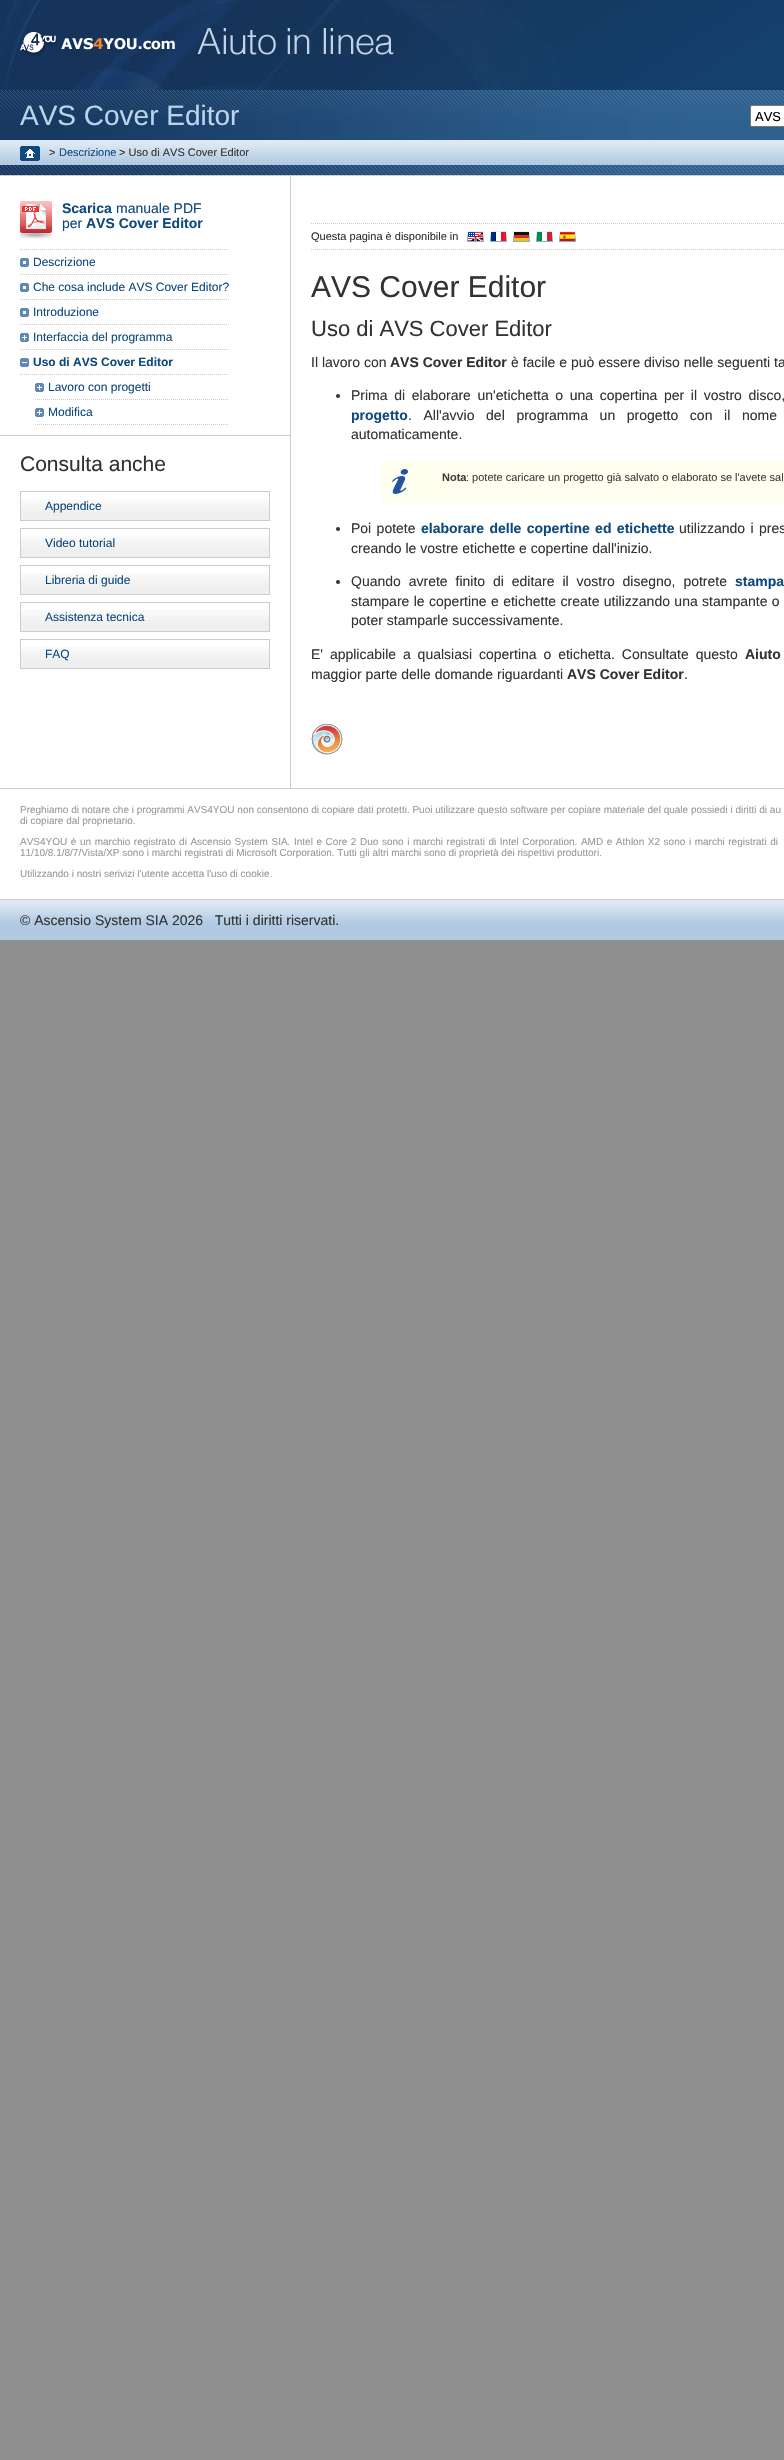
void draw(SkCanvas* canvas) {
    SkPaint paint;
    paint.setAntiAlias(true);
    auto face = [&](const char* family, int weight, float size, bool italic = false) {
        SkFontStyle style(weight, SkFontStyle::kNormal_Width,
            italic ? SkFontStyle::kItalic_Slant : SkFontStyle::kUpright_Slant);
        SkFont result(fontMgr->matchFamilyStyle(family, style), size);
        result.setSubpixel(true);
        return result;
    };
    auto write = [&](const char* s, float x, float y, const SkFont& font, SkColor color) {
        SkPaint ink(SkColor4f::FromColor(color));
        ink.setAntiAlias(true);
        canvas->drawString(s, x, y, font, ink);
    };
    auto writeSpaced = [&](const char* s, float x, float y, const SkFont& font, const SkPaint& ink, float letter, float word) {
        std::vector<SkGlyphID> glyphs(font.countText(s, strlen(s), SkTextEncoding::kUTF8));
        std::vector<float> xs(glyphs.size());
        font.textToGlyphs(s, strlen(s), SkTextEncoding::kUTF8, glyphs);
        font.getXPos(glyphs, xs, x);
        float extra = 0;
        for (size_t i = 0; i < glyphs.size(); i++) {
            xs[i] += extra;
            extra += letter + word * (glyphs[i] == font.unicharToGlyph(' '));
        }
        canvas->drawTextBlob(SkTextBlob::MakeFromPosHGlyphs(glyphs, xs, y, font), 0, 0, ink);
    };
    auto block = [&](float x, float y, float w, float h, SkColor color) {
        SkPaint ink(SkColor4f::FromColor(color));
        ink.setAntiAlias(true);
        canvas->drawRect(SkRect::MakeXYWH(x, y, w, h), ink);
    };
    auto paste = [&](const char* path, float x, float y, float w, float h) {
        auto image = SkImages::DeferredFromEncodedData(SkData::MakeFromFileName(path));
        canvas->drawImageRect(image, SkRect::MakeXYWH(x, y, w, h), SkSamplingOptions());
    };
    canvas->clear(SkColorSetRGB(143, 143, 143));
    block(0, 176, 784, 723, SK_ColorWHITE);
    paste("pic1.png", 0, 0, 784, 90);
    paste("pic2.png", 20, 32, 155, 24);
    paste("pic3.png", 197, 28, 197, 27);
    paste("pic4.png", 0, 90, 784, 50);
    auto kFont1 = face("Liberation Sans", 400, 28);
    write("AVS Cover Editor", 20, 125, kFont1, SkColorSetRGB(186, 213, 234));
    paint.setColor(SK_ColorWHITE);
    canvas->drawRoundRect(SkRect::MakeXYWH(750.5f, 105.5f, 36, 21), 1.5f, 1.5f, paint);
    paint.setStyle(SkPaint::kStroke_Style);
    paint.setStrokeWidth(1);
    paint.setColor(SkColorSetRGB(118, 118, 118));
    canvas->drawRoundRect(SkRect::MakeXYWH(750.5f, 105.5f, 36, 21), 1.5f, 1.5f, paint);
    auto kFont2 = face("Liberation Sans", 400, 13);
    write("AVS", 755, 121, kFont2, SK_ColorBLACK);
    paste("pic5.png", 0, 140, 784, 25);
    paste("pic6.png", 20, 146, 20, 15);
    auto kFont3 = face("Liberation Sans", 400, 11);
    write(">", 49, 156, kFont3, SkColorSetRGB(51, 51, 51));
    write("Descrizione", 59, 156, kFont3, SkColorSetRGB(15, 74, 126));
    write("> Uso di AVS Cover Editor", 119, 156, kFont3, SkColorSetRGB(51, 51, 51));
    paste("pic7.png", 0, 165, 784, 10);
    paste("pic8.png", 20, 201, 32, 38);
    auto kFont4 = face("Liberation Sans", 700, 14);
    write("Scarica", 62, 213, kFont4, SkColorSetRGB(15, 74, 126));
    auto kFont5 = face("Liberation Sans", 400, 14);
    write("manuale PDF", 116, 213, kFont5, SkColorSetRGB(15, 74, 126));
    write("per", 62, 228, kFont5, SkColorSetRGB(15, 74, 126));
    write("AVS Cover Editor", 86, 228, kFont4, SkColorSetRGB(15, 74, 126));
    paint.setColor(SkColorSetRGB(204, 204, 204));
    paint.setPathEffect(SkDashPathEffect::Make({{1, 1}}, 0));
    canvas->drawPath(SkPathBuilder().moveTo(20, 249.5f).lineTo(229, 249.5f).detach(), paint);
    paint.setPathEffect(nullptr);
    paint.setPathEffect(SkDashPathEffect::Make({{1, 1}}, 0));
    canvas->drawPath(SkPathBuilder().moveTo(20, 274.5f).lineTo(229, 274.5f).detach(), paint);
    paint.setPathEffect(nullptr);
    paste("pic9.png", 20, 258, 9, 9);
    auto kFont6 = face("Liberation Sans", 400, 12);
    write("Descrizione", 33, 266, kFont6, SkColorSetRGB(15, 74, 126));
    paint.setPathEffect(SkDashPathEffect::Make({{1, 1}}, 0));
    canvas->drawPath(SkPathBuilder().moveTo(20, 299.5f).lineTo(229, 299.5f).detach(), paint);
    paint.setPathEffect(nullptr);
    paste("pic9.png", 20, 283, 9, 9);
    write("Che cosa include AVS Cover Editor?", 33, 291, kFont6, SkColorSetRGB(15, 74, 126));
    paint.setPathEffect(SkDashPathEffect::Make({{1, 1}}, 0));
    canvas->drawPath(SkPathBuilder().moveTo(20, 324.5f).lineTo(229, 324.5f).detach(), paint);
    paint.setPathEffect(nullptr);
    paste("pic9.png", 20, 308, 9, 9);
    write("Introduzione", 33, 316, kFont6, SkColorSetRGB(15, 74, 126));
    paint.setPathEffect(SkDashPathEffect::Make({{1, 1}}, 0));
    canvas->drawPath(SkPathBuilder().moveTo(20, 349.5f).lineTo(229, 349.5f).detach(), paint);
    paint.setPathEffect(nullptr);
    paste("pic10.png", 20, 333, 9, 9);
    write("Interfaccia del programma", 33, 341, kFont6, SkColorSetRGB(15, 74, 126));
    paint.setPathEffect(SkDashPathEffect::Make({{1, 1}}, 0));
    canvas->drawPath(SkPathBuilder().moveTo(20, 374.5f).lineTo(229, 374.5f).detach(), paint);
    paint.setPathEffect(nullptr);
    paste("pic11.png", 20, 358, 9, 9);
    auto kFont7 = face("Liberation Sans", 700, 12);
    write("Uso di AVS Cover Editor", 33, 366, kFont7, SkColorSetRGB(15, 74, 126));
    paint.setPathEffect(SkDashPathEffect::Make({{1, 1}}, 0));
    canvas->drawPath(SkPathBuilder().moveTo(35, 399.5f).lineTo(229, 399.5f).detach(), paint);
    paint.setPathEffect(nullptr);
    paste("pic10.png", 35, 383, 9, 9);
    write("Lavoro con progetti", 48, 391, kFont6, SkColorSetRGB(15, 74, 126));
    paint.setPathEffect(SkDashPathEffect::Make({{1, 1}}, 0));
    canvas->drawPath(SkPathBuilder().moveTo(35, 424.5f).lineTo(229, 424.5f).detach(), paint);
    paint.setPathEffect(nullptr);
    paste("pic10.png", 35, 408, 9, 9);
    write("Modifica", 48, 416, kFont6, SkColorSetRGB(15, 74, 126));
    block(0, 435, 290, 1, SkColorSetRGB(204, 204, 204));
    auto kFont8 = face("Liberation Sans", 400, 21);
    write("Consulta anche", 20, 471, kFont8, SkColorSetRGB(51, 51, 51));
    paste("pic12.png", 21, 499, 248, 21);
    canvas->drawRect(SkRect::MakeXYWH(20.5f, 491.5f, 249, 29), paint);
    write("Appendice", 45, 510, kFont6, SkColorSetRGB(15, 74, 126));
    paste("pic12.png", 21, 536, 248, 21);
    canvas->drawRect(SkRect::MakeXYWH(20.5f, 528.5f, 249, 29), paint);
    write("Video tutorial", 45, 547, kFont6, SkColorSetRGB(15, 74, 126));
    paste("pic12.png", 21, 573, 248, 21);
    canvas->drawRect(SkRect::MakeXYWH(20.5f, 565.5f, 249, 29), paint);
    write("Libreria di guide", 45, 584, kFont6, SkColorSetRGB(15, 74, 126));
    paste("pic12.png", 21, 610, 248, 21);
    canvas->drawRect(SkRect::MakeXYWH(20.5f, 602.5f, 249, 29), paint);
    write("Assistenza tecnica", 45, 621, kFont6, SkColorSetRGB(15, 74, 126));
    paste("pic12.png", 21, 647, 248, 21);
    canvas->drawRect(SkRect::MakeXYWH(20.5f, 639.5f, 249, 29), paint);
    write("FAQ", 45, 658, kFont6, SkColorSetRGB(15, 74, 126));
    block(0, 175, 784, 1, SkColorSetRGB(204, 204, 204));
    block(290, 175, 1, 613, SkColorSetRGB(204, 204, 204));
    paint.setPathEffect(SkDashPathEffect::Make({{1, 1}}, 0));
    canvas->drawPath(SkPathBuilder().moveTo(311, 223.5f).lineTo(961, 223.5f).detach(), paint);
    paint.setPathEffect(nullptr);
    write("Questa pagina è disponibile in", 311, 240, kFont3, SkColorSetRGB(51, 51, 51));
    paste("pic13.png", 467, 231, 17, 11);
    paste("pic14.png", 490, 231, 17, 11);
    paste("pic15.png", 513, 231, 17, 11);
    paste("pic16.png", 536, 231, 17, 11);
    paste("pic17.png", 559, 231, 17, 11);
    paint.setPathEffect(SkDashPathEffect::Make({{1, 1}}, 0));
    canvas->drawPath(SkPathBuilder().moveTo(311, 249.5f).lineTo(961, 249.5f).detach(), paint);
    paint.setPathEffect(nullptr);
    auto kFont9 = face("Liberation Sans", 400, 30);
    write("AVS Cover Editor", 311, 297, kFont9, SkColorSetRGB(51, 51, 51));
    auto kFont10 = face("Liberation Sans", 400, 22);
    write("Uso di AVS Cover Editor", 311, 336, kFont10, SkColorSetRGB(51, 51, 51));
    write("Il lavoro con", 311, 367, kFont5, SkColorSetRGB(51, 51, 51));
    write("AVS Cover Editor", 390, 367, kFont4, SkColorSetRGB(51, 51, 51));
    write("è facile e può essere diviso nelle seguenti ta", 511, 367, kFont5, SkColorSetRGB(51, 51, 51));
    paint.setStyle(SkPaint::kFill_Style);
    paint.setColor(SkColorSetRGB(51, 51, 51));
    canvas->drawCircle(338, 396, 2, paint);
    writeSpaced("Prima di elaborare un'etichetta o una copertina per il vostro disco,", 351, 400, kFont5, paint, 0, 2.75f);
    write("progetto", 351, 420, kFont4, SkColorSetRGB(15, 74, 126));
    writeSpaced(". All'avvio del programma un progetto con il nome", 408, 420, kFont5, paint, 0, 7.75f);
    write("automaticamente.", 351, 439, kFont5, SkColorSetRGB(51, 51, 51));
    block(381, 460, 403, 43, SkColorSetRGB(255, 255, 240));
    paste("pic18.png", 392, 469, 16, 25);
    auto kFont11 = face("Liberation Sans", 700, 11);
    write("Nota", 442, 481, kFont11, SkColorSetRGB(67, 63, 63));
    write(": potete caricare un progetto già salvato o elaborato se l'avete sal", 466, 481, kFont3, SkColorSetRGB(67, 63, 63));
    canvas->drawCircle(338, 529, 2, paint);
    writeSpaced("Poi potete", 351, 533, kFont5, paint, 0, 1.5f);
    paint.setColor(SkColorSetRGB(15, 74, 126));
    writeSpaced("elaborare delle copertine ed etichette", 421, 533, kFont4, paint, 0, 1.5f);
    paint.setColor(SkColorSetRGB(51, 51, 51));
    writeSpaced("utilizzando i pres", 679, 533, kFont5, paint, 0, 1.5f);
    write("creando le vostre etichette e copertine dall'inizio.", 351, 553, kFont5, SkColorSetRGB(51, 51, 51));
    canvas->drawCircle(338, 582, 2, paint);
    writeSpaced("Quando avrete finito di editare il vostro disegno, potrete", 351, 586, kFont5, paint, 0, 4);
    paint.setColor(SkColorSetRGB(15, 74, 126));
    writeSpaced("stampa", 735, 586, kFont4, paint, 0, 4);
    paint.setColor(SkColorSetRGB(51, 51, 51));
    writeSpaced("stampare le copertine e etichette create utilizzando una stampante o", 351, 606, kFont5, paint, 0, 0.5f);
    write("poter stamparle successivamente.", 351, 625, kFont5, SkColorSetRGB(51, 51, 51));
    writeSpaced("E' applicabile a qualsiasi copertina o etichetta. Consultate questo", 311, 659, kFont5, paint, 0, 3);
    write("Aiuto", 745, 659, kFont4, SkColorSetRGB(51, 51, 51));
    write("maggior parte delle domande riguardanti", 311, 679, kFont5, SkColorSetRGB(51, 51, 51));
    write("AVS Cover Editor", 567, 679, kFont4, SkColorSetRGB(51, 51, 51));
    write(".", 684, 679, kFont5, SkColorSetRGB(51, 51, 51));
    paste("pic19.png", 311, 724, 32, 31);
    block(0, 788, 784, 1, SkColorSetRGB(204, 204, 204));
    block(0, 899, 784, 1, SkColorSetRGB(204, 204, 204));
    auto kFont12 = face("Liberation Sans", 400, 10);
    write("Preghiamo di notare che i programmi AVS4YOU non consentono di copiare dati protetti. Puoi utilizzare questo software per copiare materiale del quale possiedi i diritti di au", 20, 813, kFont12, SkColorSetRGB(153, 153, 153));
    write("di copiare dal proprietario.", 20, 824, kFont12, SkColorSetRGB(153, 153, 153));
    paint.setColor(SkColorSetRGB(153, 153, 153));
    writeSpaced("AVS4YOU è un marchio registrato di Ascensio System SIA. Intel e Core 2 Duo sono i marchi registrati di Intel Corporation. AMD e Athlon X2 sono i marchi registrati di", 20, 845, kFont12, paint, 0, 0.8f);
    write("11/10/8.1/8/7/Vista/XP sono i marchi registrati di Microsoft Corporation. Tutti gli altri marchi sono di proprietà dei rispettivi produttori.", 20, 856, kFont12, SkColorSetRGB(153, 153, 153));
    write("Utilizzando i nostri serivizi l'utente accetta l'uso di cookie.", 20, 877, kFont12, SkColorSetRGB(153, 153, 153));
    paste("pic20.png", 0, 900, 784, 40);
    write("© Ascensio System SIA 2026   Tutti i diritti riservati.", 20, 925, kFont5, SkColorSetRGB(51, 51, 51));
}
